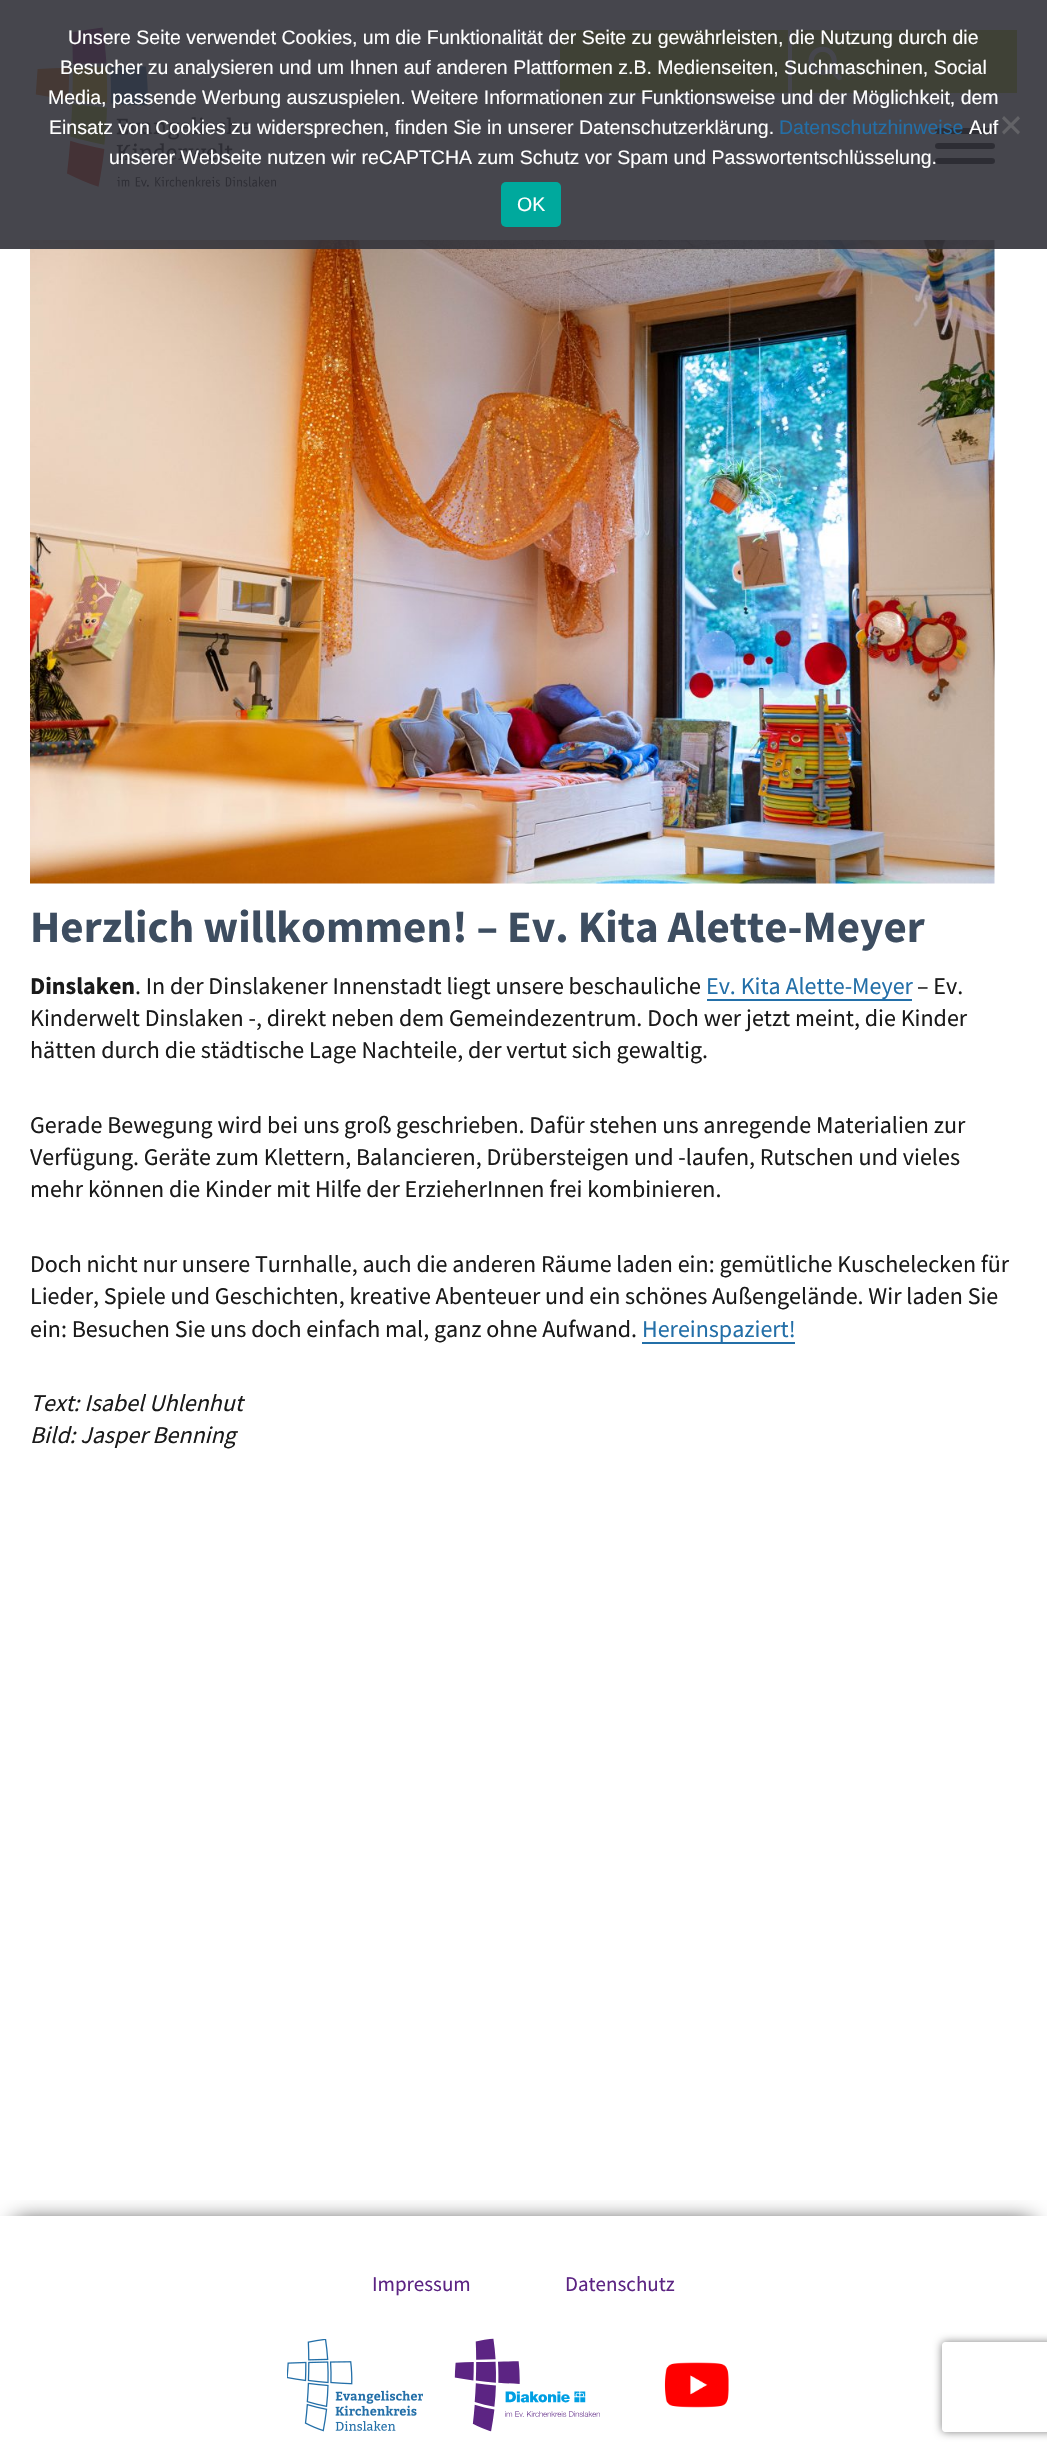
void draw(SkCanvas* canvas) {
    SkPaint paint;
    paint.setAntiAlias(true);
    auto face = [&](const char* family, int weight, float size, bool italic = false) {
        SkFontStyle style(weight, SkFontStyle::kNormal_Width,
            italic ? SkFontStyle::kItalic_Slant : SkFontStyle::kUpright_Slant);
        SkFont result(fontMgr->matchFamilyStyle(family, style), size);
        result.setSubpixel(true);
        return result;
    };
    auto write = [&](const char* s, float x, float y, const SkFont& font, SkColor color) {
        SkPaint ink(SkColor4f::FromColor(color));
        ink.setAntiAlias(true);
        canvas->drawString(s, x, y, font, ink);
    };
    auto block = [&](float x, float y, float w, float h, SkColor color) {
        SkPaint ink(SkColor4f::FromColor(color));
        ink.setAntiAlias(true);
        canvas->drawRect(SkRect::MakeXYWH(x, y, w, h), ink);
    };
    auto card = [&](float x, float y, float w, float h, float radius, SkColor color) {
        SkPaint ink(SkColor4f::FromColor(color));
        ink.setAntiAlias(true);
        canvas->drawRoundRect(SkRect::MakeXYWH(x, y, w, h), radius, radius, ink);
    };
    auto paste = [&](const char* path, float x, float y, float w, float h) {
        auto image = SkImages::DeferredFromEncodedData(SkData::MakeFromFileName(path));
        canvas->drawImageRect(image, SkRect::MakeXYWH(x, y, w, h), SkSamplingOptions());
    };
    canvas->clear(SK_ColorWHITE);
    paste("pic1.png", 35, 27, 242, 160);
    block(560, 30, 228, 63, SkColorSetRGB(175, 202, 10));
    paint.setColor(SkColorSetRGB(175, 202, 11));
    canvas->drawPath(SkPathBuilder().moveTo(792, 30).lineTo(852, 30).cubicTo(853.5f, 30, 855, 31.5f, 855, 33).lineTo(855, 90).cubicTo(855, 91.5f, 853.5f, 93, 852, 93).lineTo(792, 93).close().detach(), paint);
    paste("pic2.png", 808, 46, 34, 35);
    block(855, 30, 162, 63, SkColorSetRGB(175, 202, 11));
    card(935, 158, 60, 6, 3, SK_ColorBLACK);
    card(935, 128, 60, 6, 3, SK_ColorBLACK);
    card(935, 143, 60, 6, 3, SK_ColorBLACK);
    paste("pic3.png", 30, 240, 965, 644);
    block(0, 0, 1047, 249, SkColorSetARGB(230, 50, 50, 58));
    auto kFont1 = face("Liberation Sans", 400, 19.5f);
    write("Unsere Seite verwendet Cookies, um die Funktionalität der Seite zu gewährleisten, die Nutzung durch die", 68, 44, kFont1, SK_ColorWHITE);
    write("Besucher zu analysieren und um Ihnen auf anderen Plattformen z.B. Medienseiten, Suchmaschinen, Social", 60, 74, kFont1, SK_ColorWHITE);
    write("Media, passende Werbung auszuspielen. Weitere Informationen zur Funktionsweise und der Möglichkeit, dem", 48, 104, kFont1, SK_ColorWHITE);
    write("Einsatz von Cookies zu widersprechen, finden Sie in unserer Datenschutzerklärung.", 49, 134, kFont1, SK_ColorWHITE);
    write("Datenschutzhinweise", 779, 134, kFont1, SkColorSetRGB(35, 111, 168));
    write("Auf", 969, 134, kFont1, SK_ColorWHITE);
    write("unserer Webseite nutzen wir reCAPTCHA zum Schutz vor Spam und Passwortentschlüsselung.", 109, 164, kFont1, SK_ColorWHITE);
    paint.setColor(SkColorSetRGB(99, 99, 103));
    canvas->drawPath(SkPathBuilder().moveTo(1018, 116).lineTo(1020, 118.5f).lineTo(1004, 134.5f).lineTo(1002, 132).close().detach(), paint);
    canvas->drawPath(SkPathBuilder().moveTo(1002, 118.5f).lineTo(1004, 116).lineTo(1020, 132).lineTo(1018, 134.5f).close().detach(), paint);
    card(501, 182, 60, 45, 5, SkColorSetRGB(0, 169, 157));
    write("OK", 517, 211, kFont1, SK_ColorWHITE);
    auto kFont2 = face("Source Sans Pro", 700, 45);
    write("Herzlich willkommen! – Ev. Kita Alette-Meyer", 30, 942, kFont2, SkColorSetRGB(61, 77, 96));
    auto kFont3 = face("Source Sans Pro", 700, 24);
    write("Dinslaken", 30, 994, kFont3, SkColorSetRGB(26, 26, 26));
    auto kFont4 = face("Source Sans Pro", 400, 24);
    write(". In der Dinslakener Innenstadt liegt unsere beschauliche", 135, 994, kFont4, SkColorSetRGB(26, 26, 26));
    write("Ev. Kita Alette-Meyer", 706, 994, kFont4, SkColorSetRGB(35, 111, 168));
    block(707, 999, 205, 2, SkColorSetRGB(35, 111, 168));
    write("– Ev.", 917, 994, kFont4, SkColorSetRGB(26, 26, 26));
    write("Kinderwelt Dinslaken -, direkt neben dem Gemeindezentrum. Doch wer jetzt meint, die Kinder", 30, 1026, kFont4, SkColorSetRGB(26, 26, 26));
    write("hätten durch die städtische Lage Nachteile, der vertut sich gewaltig.", 30, 1058, kFont4, SkColorSetRGB(26, 26, 26));
    write("Gerade Bewegung wird bei uns groß geschrieben. Dafür stehen uns anregende Materialien zur", 30, 1133, kFont4, SkColorSetRGB(26, 26, 26));
    write("Verfügung. Geräte zum Klettern, Balancieren, Drübersteigen und -laufen, Rutschen und vieles", 30, 1165, kFont4, SkColorSetRGB(26, 26, 26));
    write("mehr können die Kinder mit Hilfe der ErzieherInnen frei kombinieren.", 30, 1197, kFont4, SkColorSetRGB(26, 26, 26));
    write("Doch nicht nur unsere Turnhalle, auch die anderen Räume laden ein: gemütliche Kuschelecken für", 30, 1272, kFont4, SkColorSetRGB(26, 26, 26));
    write("Lieder, Spiele und Geschichten, kreative Abenteuer und ein schönes Außengelände. Wir laden Sie", 30, 1304, kFont4, SkColorSetRGB(26, 26, 26));
    write("ein: Besuchen Sie uns doch einfach mal, ganz ohne Aufwand.", 30, 1337, kFont4, SkColorSetRGB(26, 26, 26));
    write("Hereinspaziert!", 642, 1337, kFont4, SkColorSetRGB(35, 111, 168));
    block(642, 1342, 153, 2, SkColorSetRGB(35, 111, 168));
    auto kFont5 = face("Source Sans Pro", 400, 24, true);
    write("Text: Isabel Uhlenhut", 30, 1411, kFont5, SkColorSetRGB(26, 26, 26));
    write("Bild: Jasper Benning", 30, 1443, kFont5, SkColorSetRGB(26, 26, 26));
    canvas->save();
    canvas->clipRect(SkRect::MakeXYWH(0, 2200, 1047, 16));
    paint.setColor(SK_ColorBLACK);
    paint.setMaskFilter(SkMaskFilter::MakeBlur(kNormal_SkBlurStyle, 11));
    canvas->drawRect(SkRect::MakeXYWH(15, 2223, 1017, 207), paint);
    paint.setMaskFilter(nullptr);
    canvas->restore();
    auto kFont6 = face("Source Sans Pro", 400, 21);
    write("Impressum", 372, 2291, kFont6, SkColorSetRGB(92, 36, 131));
    write("Datenschutz", 565, 2291, kFont6, SkColorSetRGB(92, 36, 131));
    paste("pic4.png", 287, 2339, 136, 93);
    paste("pic5.png", 454, 2338, 146, 94);
    paste("pic6.png", 664, 2362, 65, 46);
    canvas->save();
    canvas->clipPath(SkPathBuilder(SkPathFillType::kEvenOdd).moveTo(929, 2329).lineTo(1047, 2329).lineTo(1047, 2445).lineTo(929, 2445).close().moveTo(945, 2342).lineTo(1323, 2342).cubicTo(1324.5f, 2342, 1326, 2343.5f, 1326, 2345).lineTo(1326, 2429).cubicTo(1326, 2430.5f, 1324.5f, 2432, 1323, 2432).lineTo(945, 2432).cubicTo(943.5f, 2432, 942, 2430.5f, 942, 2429).lineTo(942, 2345).cubicTo(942, 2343.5f, 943.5f, 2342, 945, 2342).close().detach(), true);
    paint.setColor(SkColorSetRGB(128, 128, 128));
    paint.setMaskFilter(SkMaskFilter::MakeBlur(kNormal_SkBlurStyle, 4));
    canvas->drawRoundRect(SkRect::MakeXYWH(942, 2342, 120, 90), 3, 3, paint);
    paint.setMaskFilter(nullptr);
    canvas->restore();
}
